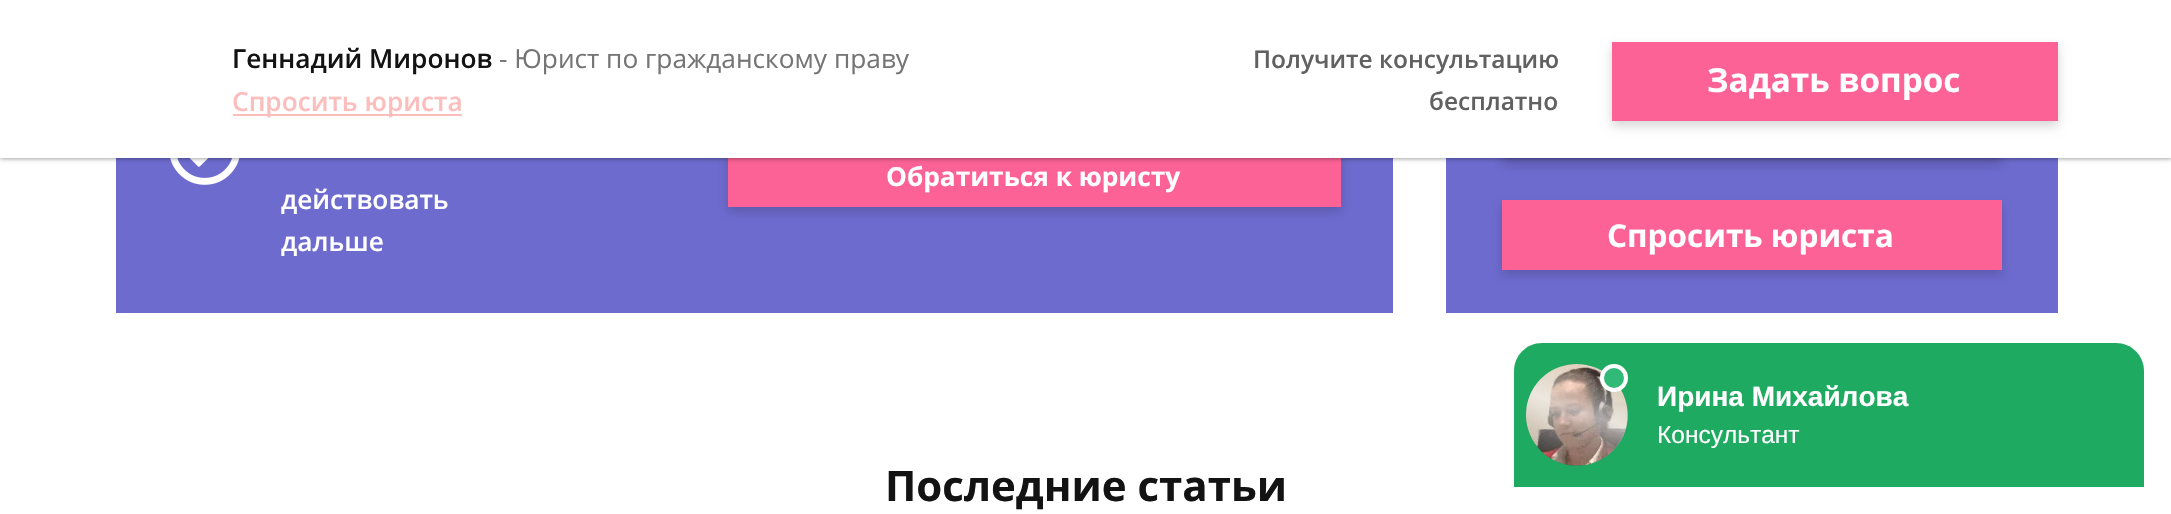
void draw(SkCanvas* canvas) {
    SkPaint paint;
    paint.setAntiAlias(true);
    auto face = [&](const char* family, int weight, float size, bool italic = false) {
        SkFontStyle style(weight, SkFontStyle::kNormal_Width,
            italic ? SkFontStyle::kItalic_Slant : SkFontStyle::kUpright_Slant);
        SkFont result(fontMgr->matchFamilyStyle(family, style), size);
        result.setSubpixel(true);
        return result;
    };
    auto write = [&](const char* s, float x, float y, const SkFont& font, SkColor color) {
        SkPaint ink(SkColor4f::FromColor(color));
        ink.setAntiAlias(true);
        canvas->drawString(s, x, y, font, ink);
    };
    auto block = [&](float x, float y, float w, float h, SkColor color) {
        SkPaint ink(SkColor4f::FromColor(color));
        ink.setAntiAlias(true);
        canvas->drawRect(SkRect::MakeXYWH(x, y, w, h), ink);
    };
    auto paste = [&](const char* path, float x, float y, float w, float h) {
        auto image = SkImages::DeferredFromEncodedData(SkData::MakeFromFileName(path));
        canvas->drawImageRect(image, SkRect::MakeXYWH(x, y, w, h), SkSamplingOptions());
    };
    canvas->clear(SK_ColorWHITE);
    block(116, 158, 1277, 155, SkColorSetRGB(109, 107, 206));
    paint.setColor(SkColorSetARGB(41, 0, 0, 0));
    paint.setMaskFilter(SkMaskFilter::MakeBlur(kNormal_SkBlurStyle, 5));
    canvas->drawRect(SkRect::MakeXYWH(728, 151, 613, 61), paint);
    paint.setMaskFilter(nullptr);
    block(728, 158, 613, 49, SkColorSetRGB(252, 98, 149));
    paste("pic1.png", 170, 158, 70, 27);
    block(1446, 158, 612, 155, SkColorSetRGB(109, 107, 206));
    paint.setColor(SkColorSetARGB(128, 0, 0, 0));
    paint.setMaskFilter(SkMaskFilter::MakeBlur(kNormal_SkBlurStyle, 2.5f));
    canvas->drawRect(SkRect::MakeXYWH(0, 0, 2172, 158), paint);
    paint.setMaskFilter(nullptr);
    paint.setColor(SkColorSetARGB(41, 0, 0, 0));
    paint.setMaskFilter(SkMaskFilter::MakeBlur(kNormal_SkBlurStyle, 5));
    canvas->drawRect(SkRect::MakeXYWH(1502, 95, 500, 70), paint);
    paint.setMaskFilter(nullptr);
    block(0, 0, 2171, 158, SK_ColorWHITE);
    auto kFont1 = face("Open Sans", 600, 26.25f);
    write("Геннадий Миронов", 232, 68, kFont1, SkColorSetRGB(19, 19, 19));
    auto kFont2 = face("Open Sans", 400, 26.25f);
    write("- Юрист по гражданскому праву", 499, 68, kFont2, SkColorSetRGB(117, 117, 117));
    block(233, 114, 229, 2, SkColorSetRGB(252, 189, 189));
    write("Спросить юриста", 232, 111, kFont1, SkColorSetRGB(252, 189, 189));
    auto kFont3 = face("Open Sans", 600, 24.5f);
    write("Получите консультацию", 1253, 68, kFont3, SkColorSetRGB(97, 97, 97));
    write("бесплатно", 1429, 110, kFont3, SkColorSetRGB(97, 97, 97));
    paint.setMaskFilter(SkMaskFilter::MakeBlur(kNormal_SkBlurStyle, 5));
    canvas->drawRect(SkRect::MakeXYWH(1612, 47, 446, 79), paint);
    paint.setMaskFilter(nullptr);
    block(1612, 42, 446, 79, SkColorSetRGB(252, 98, 149));
    auto kFont4 = face("Open Sans", 700, 33.25f);
    write("Задать вопрос", 1707, 92, kFont4, SK_ColorWHITE);
    auto kFont5 = face("Open Sans", 700, 26.25f);
    write("Обратиться к юристу", 886, 186, kFont5, SK_ColorWHITE);
    write("действовать", 281, 209, kFont1, SK_ColorWHITE);
    write("дальше", 281, 251, kFont1, SK_ColorWHITE);
    paint.setMaskFilter(SkMaskFilter::MakeBlur(kNormal_SkBlurStyle, 5));
    canvas->drawRect(SkRect::MakeXYWH(1502, 205, 500, 70), paint);
    paint.setMaskFilter(nullptr);
    block(1502, 200, 500, 70, SkColorSetRGB(252, 98, 149));
    auto kFont6 = face("Open Sans", 700, 31.5f);
    write("Спросить юриста", 1607, 247, kFont6, SK_ColorWHITE);
    auto kFont7 = face("Open Sans", 700, 42);
    write("Последние статьи", 885, 501, kFont7, SkColorSetRGB(19, 19, 19));
    paint.setColor(SkColorSetRGB(30, 170, 97));
    canvas->drawPath(SkPathBuilder().moveTo(1542, 343).lineTo(2116, 343).cubicTo(2131.5f, 343, 2144, 355.5f, 2144, 371).lineTo(2144, 487).lineTo(1514, 487).lineTo(1514, 371).cubicTo(1514, 355.5f, 1526.5f, 343, 1542, 343).close().detach(), paint);
    paint.setColor(SkColorSetRGB(23, 128, 73));
    canvas->drawCircle(1577, 415, 51, paint);
    paste("pic2.png", 1526, 364, 102, 102);
    {
        const SkColor colors[] = {SkColorSetARGB(0, 255, 255, 255), SkColorSetARGB(153, 255, 255, 255), SkColorSetARGB(92, 255, 255, 255), SkColorSetARGB(0, 255, 255, 255)};
        const float stops[] = {0, 0.4f, 0.6f, 1};
        const SkPoint ends[] = {{1594, 373}, {1559, 469}};
        paint.setShader(SkGradientShader::MakeLinear(ends, colors, stops, 4, SkTileMode::kClamp));
        paint.setAlpha(255);
    }
    canvas->drawPath(SkPathBuilder().moveTo(1570, 364).lineTo(1614, 380).cubicTo(1623, 389, 1628, 402, 1628, 415).cubicTo(1628, 443, 1605, 466, 1577, 466).cubicTo(1549, 466, 1526, 443, 1526, 415).cubicTo(1526, 389, 1545, 368, 1570, 364).close().detach(), paint);
    paint.setShader(nullptr);
    paint.setColor(SkColorSetRGB(49, 185, 120));
    canvas->drawCircle(1614, 378, 12, paint);
    paint.setStyle(SkPaint::kStroke_Style);
    paint.setStrokeWidth(4);
    paint.setColor(SK_ColorWHITE);
    canvas->drawCircle(1614, 378, 12, paint);
    auto kFont8 = face("Liberation Sans", 700, 28);
    write("Ирина Михайлова", 1657, 406, kFont8, SK_ColorWHITE);
    auto kFont9 = face("Liberation Sans", 400, 24.5f);
    write("Консультант", 1657, 443, kFont9, SK_ColorWHITE);
}
